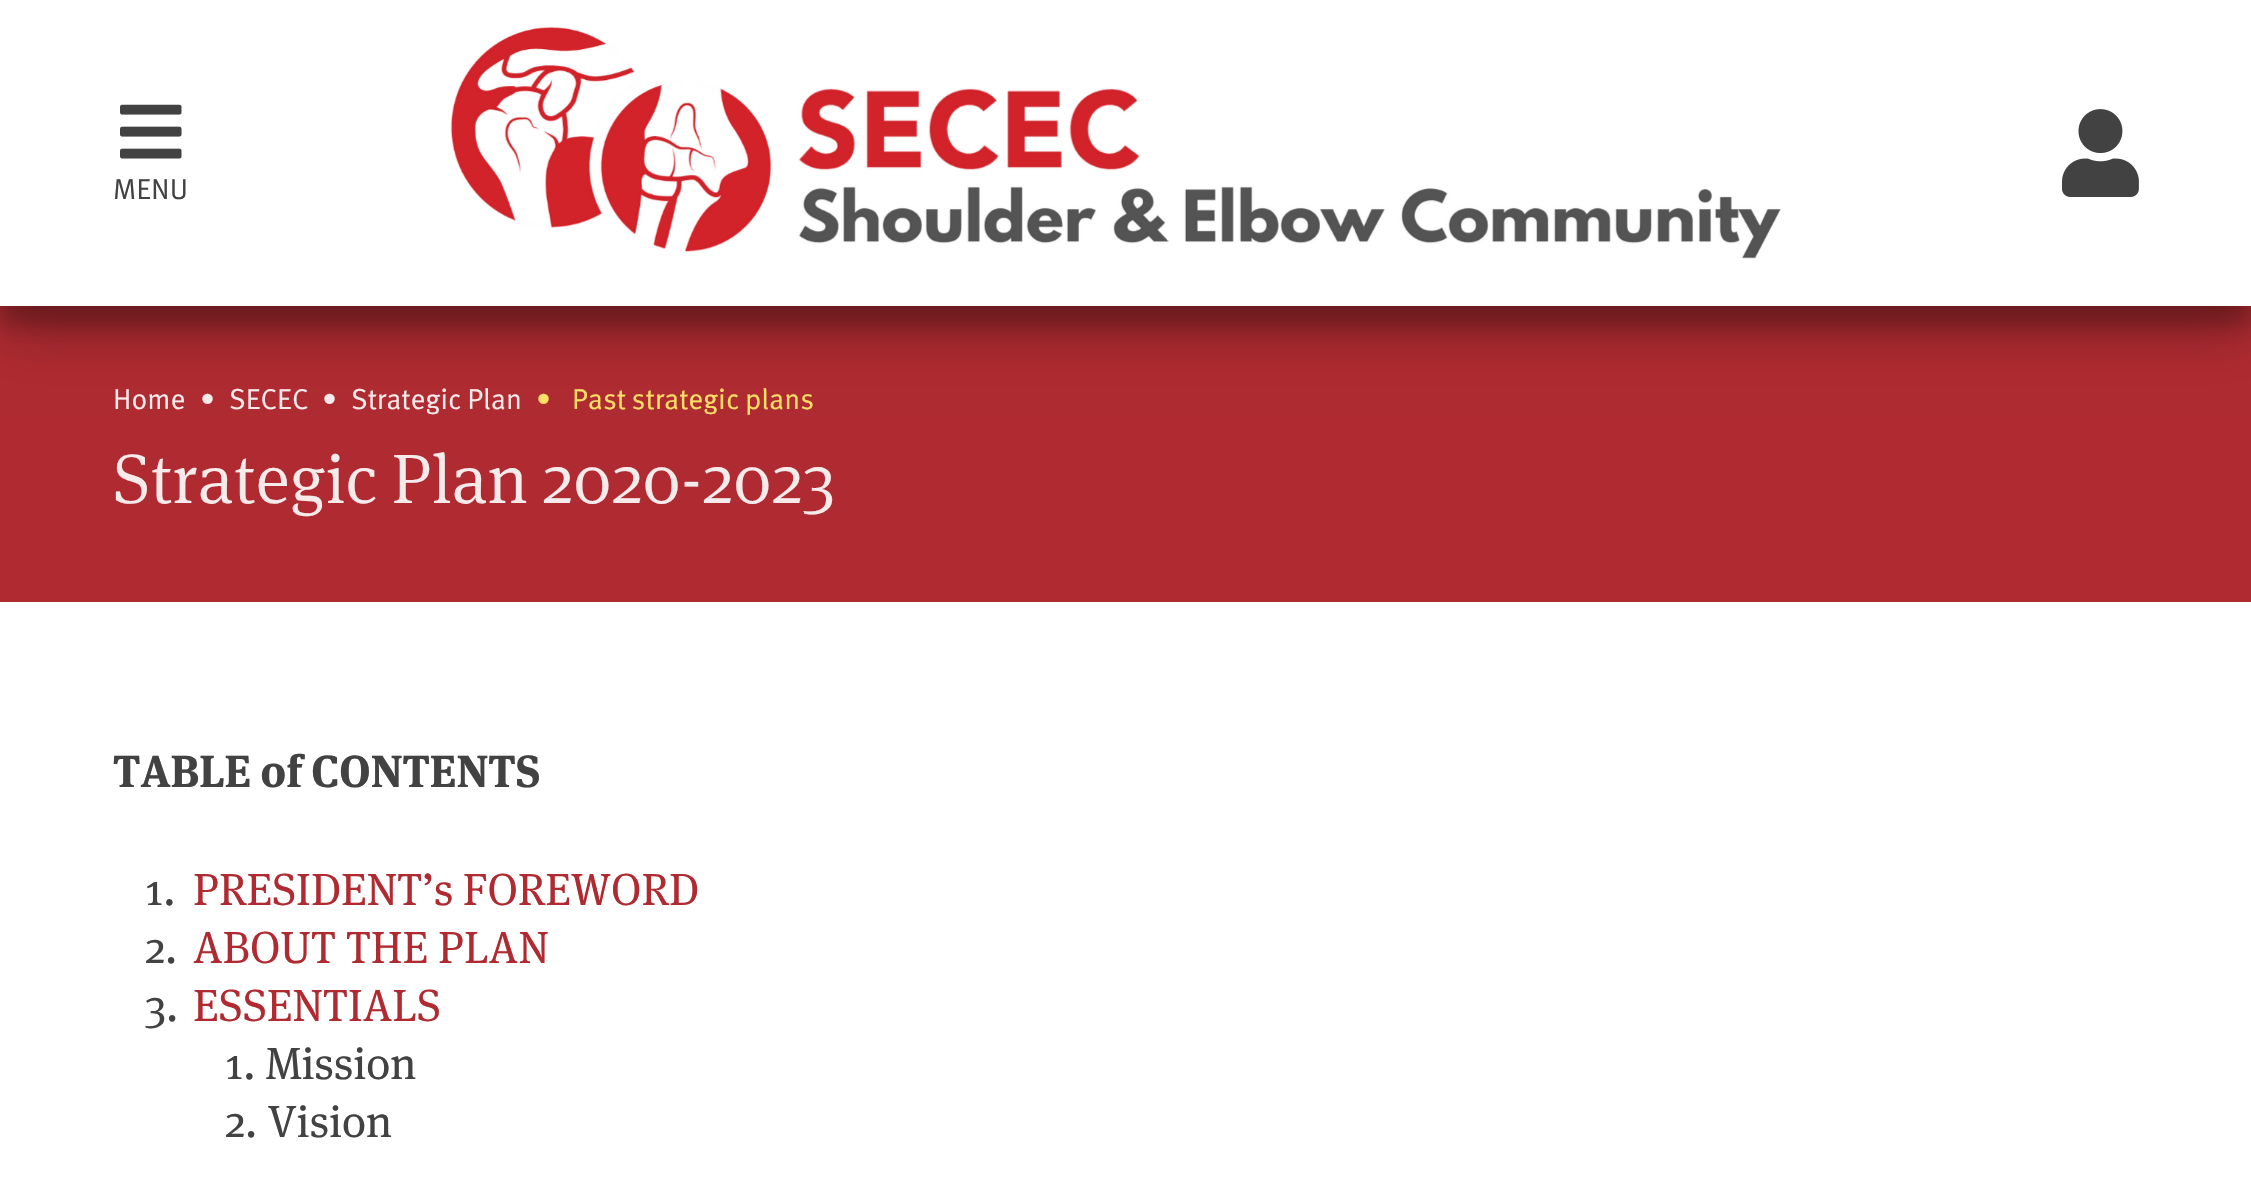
void draw(SkCanvas* canvas) {
    SkPaint paint;
    paint.setAntiAlias(true);
    auto face = [&](const char* family, int weight, float size, bool italic = false) {
        SkFontStyle style(weight, SkFontStyle::kNormal_Width,
            italic ? SkFontStyle::kItalic_Slant : SkFontStyle::kUpright_Slant);
        SkFont result(fontMgr->matchFamilyStyle(family, style), size);
        result.setSubpixel(true);
        return result;
    };
    auto write = [&](const char* s, float x, float y, const SkFont& font, SkColor color) {
        SkPaint ink(SkColor4f::FromColor(color));
        ink.setAntiAlias(true);
        canvas->drawString(s, x, y, font, ink);
    };
    auto writeSpaced = [&](const char* s, float x, float y, const SkFont& font, const SkPaint& ink, float letter, float word) {
        std::vector<SkGlyphID> glyphs(font.countText(s, strlen(s), SkTextEncoding::kUTF8));
        std::vector<float> xs(glyphs.size());
        font.textToGlyphs(s, strlen(s), SkTextEncoding::kUTF8, glyphs);
        font.getXPos(glyphs, xs, x);
        float extra = 0;
        for (size_t i = 0; i < glyphs.size(); i++) {
            xs[i] += extra;
            extra += letter + word * (glyphs[i] == font.unicharToGlyph(' '));
        }
        canvas->drawTextBlob(SkTextBlob::MakeFromPosHGlyphs(glyphs, xs, y, font), 0, 0, ink);
    };
    auto block = [&](float x, float y, float w, float h, SkColor color) {
        SkPaint ink(SkColor4f::FromColor(color));
        ink.setAntiAlias(true);
        canvas->drawRect(SkRect::MakeXYWH(x, y, w, h), ink);
    };
    auto paste = [&](const char* path, float x, float y, float w, float h) {
        auto image = SkImages::DeferredFromEncodedData(SkData::MakeFromFileName(path));
        canvas->drawImageRect(image, SkRect::MakeXYWH(x, y, w, h), SkSamplingOptions());
    };
    canvas->clear(SK_ColorWHITE);
    block(0, 306, 2251, 296, SkColorSetRGB(175, 43, 49));
    paint.setColor(SkColorSetARGB(56, 0, 0, 0));
    paint.setMaskFilter(SkMaskFilter::MakeBlur(kNormal_SkBlurStyle, 10));
    canvas->drawRect(SkRect::MakeXYWH(0, 20, 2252, 306), paint);
    paint.setMaskFilter(nullptr);
    paint.setColor(SkColorSetARGB(64, 0, 0, 0));
    paint.setMaskFilter(SkMaskFilter::MakeBlur(kNormal_SkBlurStyle, 28));
    canvas->drawRect(SkRect::MakeXYWH(0, 28, 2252, 306), paint);
    paint.setMaskFilter(nullptr);
    block(0, 0, 2251, 306, SK_ColorWHITE);
    paste("pic1.png", 120, 104, 62, 55);
    auto kFont1 = face("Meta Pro", 400, 28.75f);
    write("MENU", 113, 199, kFont1, SkColorSetRGB(66, 66, 66));
    paste("pic2.png", 450, 26, 1331, 233);
    paste("pic3.png", 2062, 109, 77, 88);
    write("Home", 113, 409, kFont1, SkColorSetRGB(247, 234, 234));
    write("•", 200, 409, kFont1, SkColorSetRGB(247, 234, 234));
    write("SECEC", 229, 409, kFont1, SkColorSetRGB(247, 234, 234));
    write("•", 322, 409, kFont1, SkColorSetRGB(247, 234, 234));
    paint.setColor(SkColorSetRGB(247, 234, 234));
    writeSpaced("Strategic Plan", 351, 409, kFont1, paint, 0, -1);
    write("•", 536, 409, kFont1, SkColorSetRGB(255, 224, 102));
    paint.setColor(SkColorSetRGB(255, 224, 102));
    writeSpaced("Past strategic plans", 572, 409, kFont1, paint, 0, -1);
    auto kFont2 = face("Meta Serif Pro", 300, 70.25f);
    paint.setColor(SkColorSetRGB(247, 234, 234));
    writeSpaced("Strategic Plan 2020-2023", 113, 503, kFont2, paint, 0, -2);
    auto kFont3 = face("Meta Serif Pro", 700, 45);
    paint.setColor(SkColorSetRGB(66, 66, 66));
    writeSpaced("TABLE of CONTENTS", 113, 787, kFont3, paint, 0, -1);
    auto kFont4 = face("Meta Serif Pro", 400, 45);
    write("1.", 145, 905, kFont4, SkColorSetRGB(66, 66, 66));
    paint.setColor(SkColorSetRGB(175, 43, 49));
    writeSpaced("PRESIDENT’s FOREWORD", 193, 905, kFont4, paint, 0, -1);
    write("2.", 145, 963, kFont4, SkColorSetRGB(66, 66, 66));
    write("ABOUT THE PLAN", 193, 963, kFont4, SkColorSetRGB(175, 43, 49));
    write("3.", 145, 1021, kFont4, SkColorSetRGB(66, 66, 66));
    write("ESSENTIALS", 193, 1021, kFont4, SkColorSetRGB(175, 43, 49));
    write("1. Mission", 225, 1079, kFont4, SkColorSetRGB(66, 66, 66));
    write("2. Vision", 225, 1137, kFont4, SkColorSetRGB(66, 66, 66));
}
